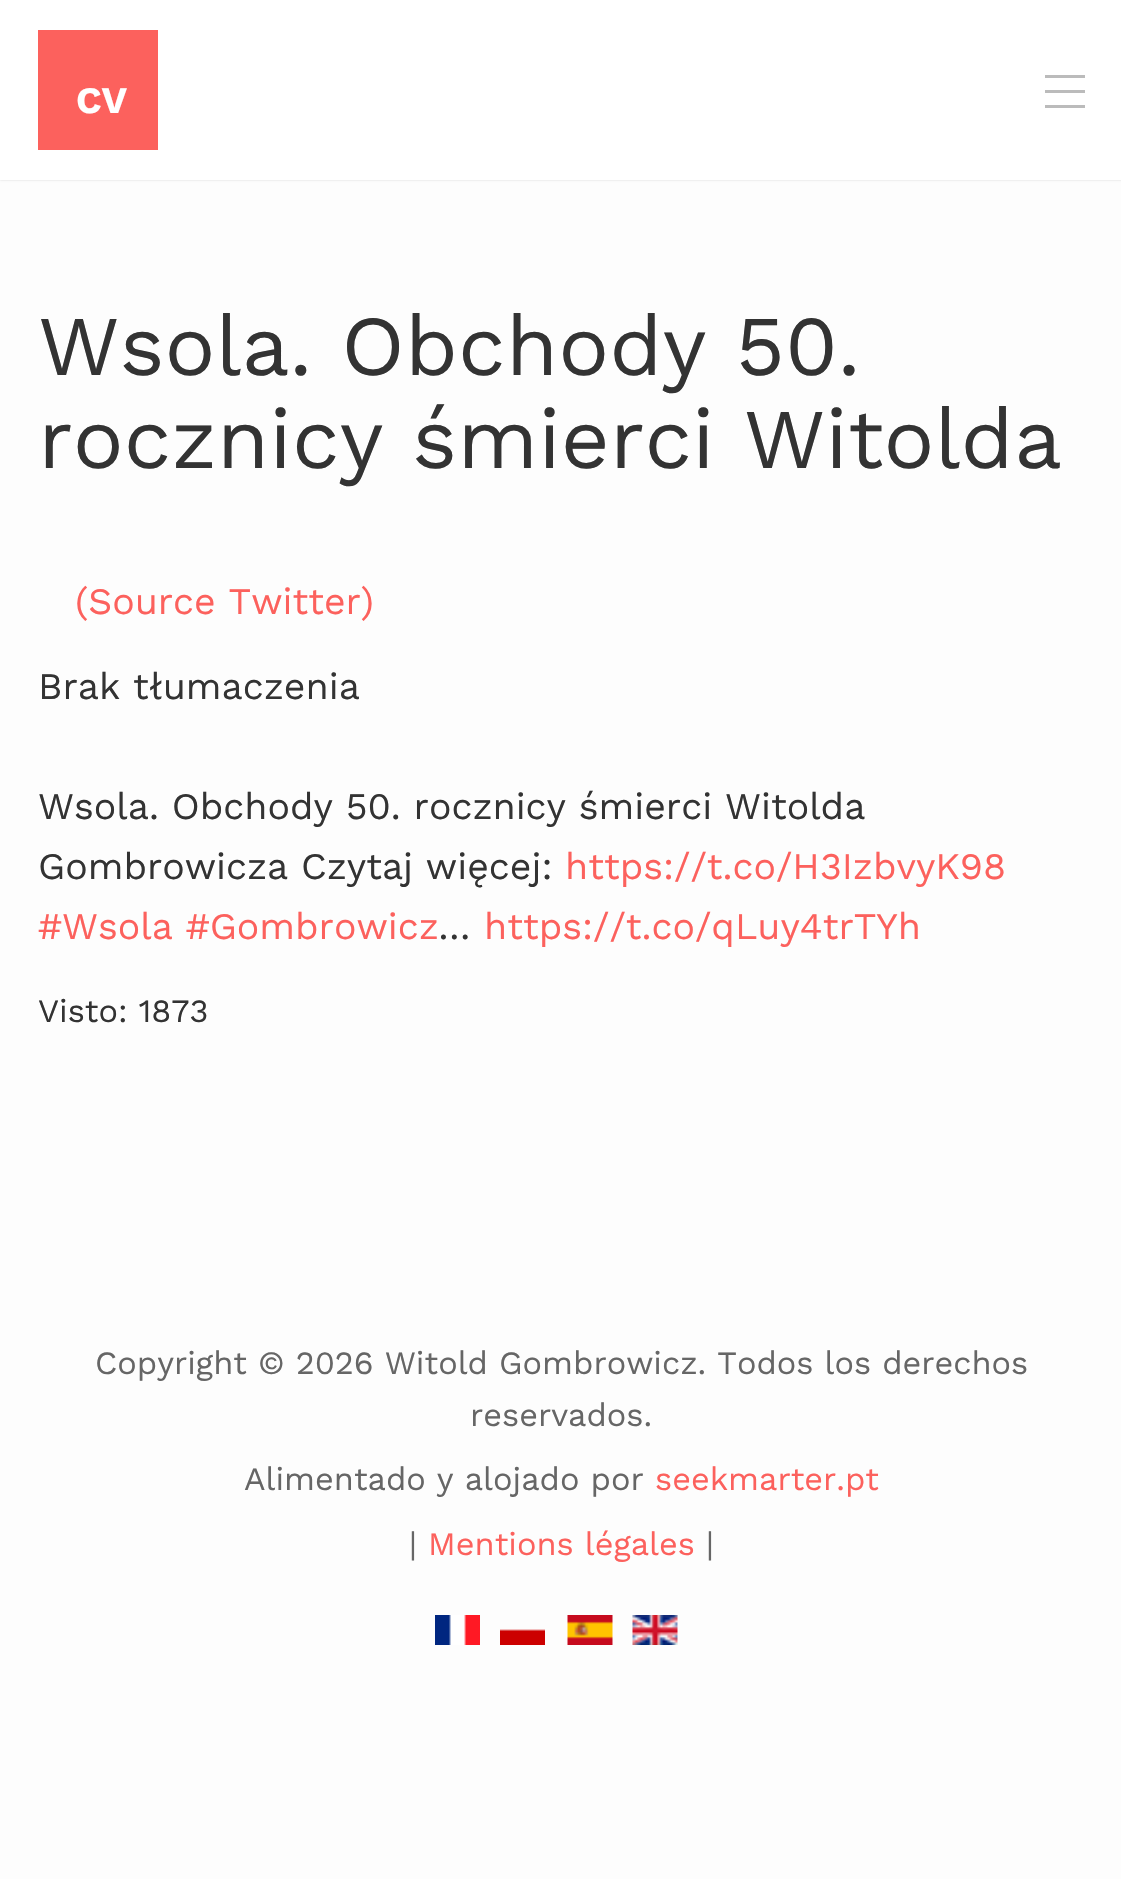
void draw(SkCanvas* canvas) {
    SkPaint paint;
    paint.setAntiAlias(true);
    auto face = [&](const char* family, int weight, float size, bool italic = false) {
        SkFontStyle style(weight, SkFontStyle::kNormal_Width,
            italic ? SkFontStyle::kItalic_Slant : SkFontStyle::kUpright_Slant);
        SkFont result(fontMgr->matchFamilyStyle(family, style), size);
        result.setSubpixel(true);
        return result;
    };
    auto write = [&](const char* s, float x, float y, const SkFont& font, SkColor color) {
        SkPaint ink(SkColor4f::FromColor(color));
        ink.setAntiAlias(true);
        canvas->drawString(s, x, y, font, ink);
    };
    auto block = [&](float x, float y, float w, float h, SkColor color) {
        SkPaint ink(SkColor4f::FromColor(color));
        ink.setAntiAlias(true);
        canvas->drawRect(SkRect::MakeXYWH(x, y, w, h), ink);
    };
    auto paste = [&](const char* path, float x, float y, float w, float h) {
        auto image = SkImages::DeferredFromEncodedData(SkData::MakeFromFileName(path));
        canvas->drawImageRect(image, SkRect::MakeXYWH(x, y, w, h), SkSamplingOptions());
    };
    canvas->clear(SkColorSetRGB(253, 253, 253));
    paint.setColor(SkColorSetARGB(38, 0, 0, 0));
    paint.setMaskFilter(SkMaskFilter::MakeBlur(kNormal_SkBlurStyle, 1));
    canvas->drawRect(SkRect::MakeXYWH(0, 0, 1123, 180), paint);
    paint.setMaskFilter(nullptr);
    block(0, 0, 1121, 180, SK_ColorWHITE);
    block(38, 30, 120, 120, SkColorSetRGB(252, 97, 93));
    auto kFont1 = face("Work Sans", 700, 37.5f);
    write("CV", 76, 113, kFont1, SK_ColorWHITE);
    block(1045, 90, 40, 3, SkColorSetRGB(187, 187, 187));
    block(1045, 75, 40, 3, SkColorSetRGB(187, 187, 187));
    block(1045, 105, 40, 3, SkColorSetRGB(187, 187, 187));
    auto kFont2 = face("Work Sans", 400, 85);
    write("Wsola. Obchody 50.", 38, 375, kFont2, SkColorSetRGB(51, 51, 51));
    write("rocznicy śmierci Witolda", 38, 468, kFont2, SkColorSetRGB(51, 51, 51));
    auto kFont3 = face("Work Sans", 400, 37.5f);
    write("(Source Twitter)", 75, 614, kFont3, SkColorSetRGB(252, 97, 93));
    write("Brak tłumaczenia", 38, 699, kFont3, SkColorSetRGB(51, 51, 51));
    write("Wsola. Obchody 50. rocznicy śmierci Witolda", 38, 819, kFont3, SkColorSetRGB(51, 51, 51));
    write("Gombrowicza Czytaj więcej:", 38, 879, kFont3, SkColorSetRGB(51, 51, 51));
    write("https://t.co/H3IzbvyK98", 565, 879, kFont3, SkColorSetRGB(252, 97, 93));
    write("#Wsola #Gombrowicz", 38, 939, kFont3, SkColorSetRGB(252, 97, 93));
    write("…", 438, 939, kFont3, SkColorSetRGB(51, 51, 51));
    write("https://t.co/qLuy4trTYh", 484, 939, kFont3, SkColorSetRGB(252, 97, 93));
    auto kFont4 = face("Work Sans", 400, 32.5f);
    write("Visto: 1873", 38, 1022, kFont4, SkColorSetRGB(51, 51, 51));
    write("Copyright © 2026 Witold Gombrowicz. Todos los derechos", 95, 1374, kFont4, SkColorSetRGB(102, 102, 102));
    write("reservados.", 470, 1426, kFont4, SkColorSetRGB(102, 102, 102));
    write("Alimentado y alojado por", 244, 1490, kFont4, SkColorSetRGB(102, 102, 102));
    write("seekmarter.pt", 655, 1490, kFont4, SkColorSetRGB(252, 97, 93));
    write("|", 409, 1555, kFont4, SkColorSetRGB(102, 102, 102));
    write("Mentions légales", 428, 1555, kFont4, SkColorSetRGB(252, 97, 93));
    write("|", 706, 1555, kFont4, SkColorSetRGB(102, 102, 102));
    paste("pic1.png", 435, 1615, 45, 30);
    paste("pic2.png", 500, 1629, 45, 16);
    paste("pic3.png", 567, 1615, 46, 30);
    paste("pic4.png", 632, 1615, 46, 30);
}
